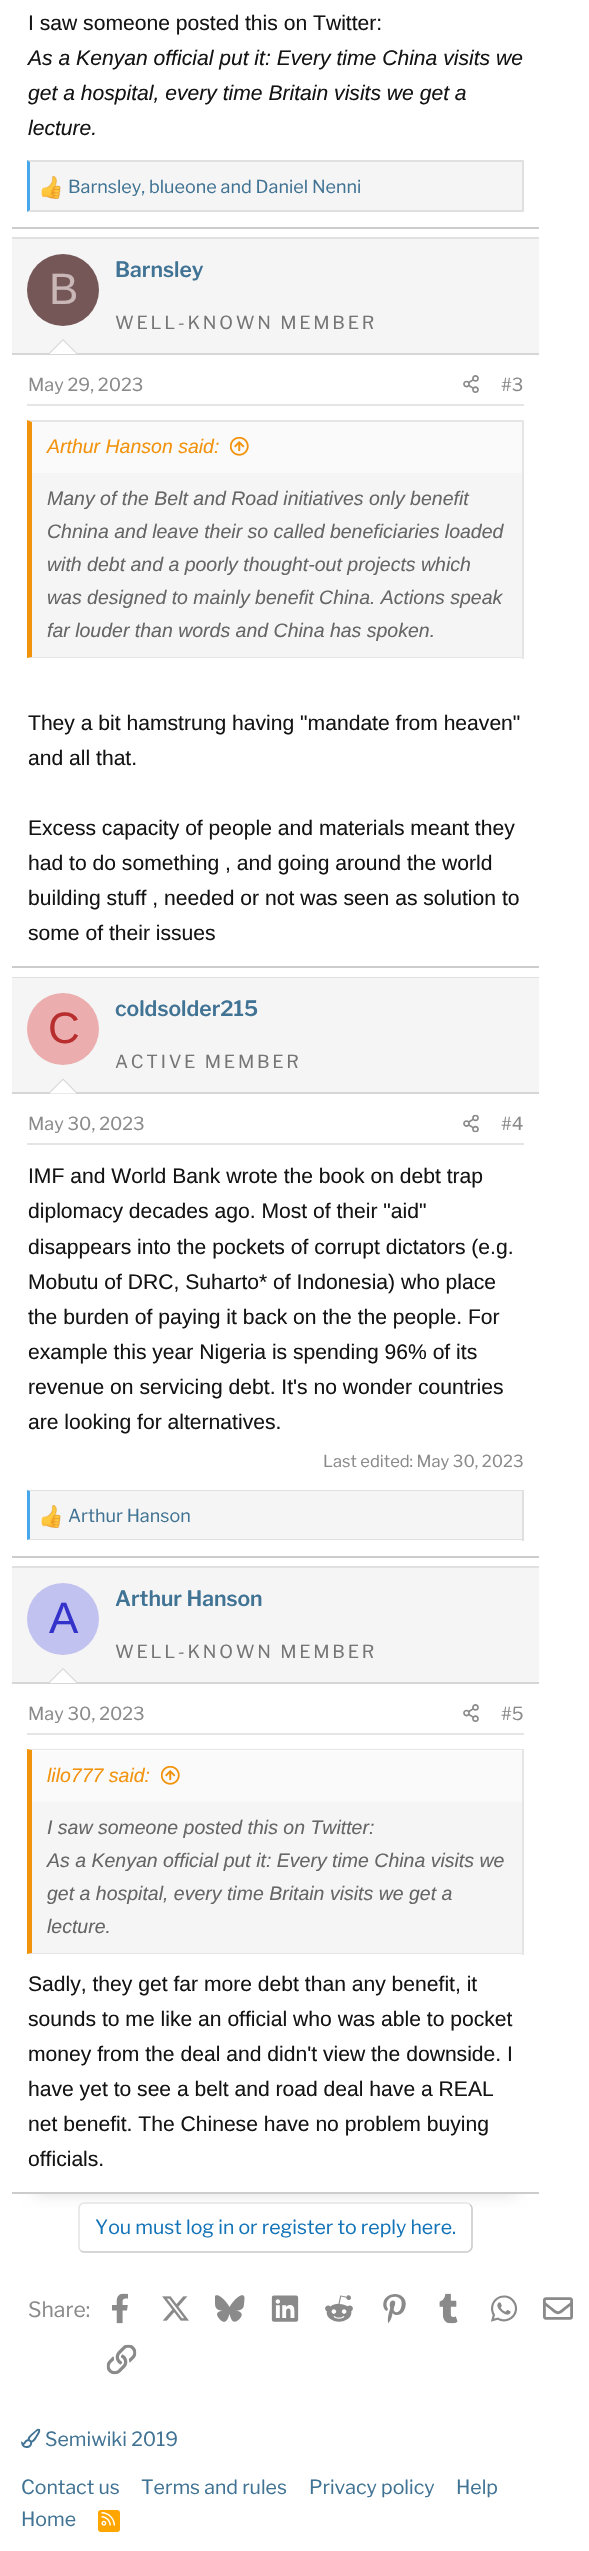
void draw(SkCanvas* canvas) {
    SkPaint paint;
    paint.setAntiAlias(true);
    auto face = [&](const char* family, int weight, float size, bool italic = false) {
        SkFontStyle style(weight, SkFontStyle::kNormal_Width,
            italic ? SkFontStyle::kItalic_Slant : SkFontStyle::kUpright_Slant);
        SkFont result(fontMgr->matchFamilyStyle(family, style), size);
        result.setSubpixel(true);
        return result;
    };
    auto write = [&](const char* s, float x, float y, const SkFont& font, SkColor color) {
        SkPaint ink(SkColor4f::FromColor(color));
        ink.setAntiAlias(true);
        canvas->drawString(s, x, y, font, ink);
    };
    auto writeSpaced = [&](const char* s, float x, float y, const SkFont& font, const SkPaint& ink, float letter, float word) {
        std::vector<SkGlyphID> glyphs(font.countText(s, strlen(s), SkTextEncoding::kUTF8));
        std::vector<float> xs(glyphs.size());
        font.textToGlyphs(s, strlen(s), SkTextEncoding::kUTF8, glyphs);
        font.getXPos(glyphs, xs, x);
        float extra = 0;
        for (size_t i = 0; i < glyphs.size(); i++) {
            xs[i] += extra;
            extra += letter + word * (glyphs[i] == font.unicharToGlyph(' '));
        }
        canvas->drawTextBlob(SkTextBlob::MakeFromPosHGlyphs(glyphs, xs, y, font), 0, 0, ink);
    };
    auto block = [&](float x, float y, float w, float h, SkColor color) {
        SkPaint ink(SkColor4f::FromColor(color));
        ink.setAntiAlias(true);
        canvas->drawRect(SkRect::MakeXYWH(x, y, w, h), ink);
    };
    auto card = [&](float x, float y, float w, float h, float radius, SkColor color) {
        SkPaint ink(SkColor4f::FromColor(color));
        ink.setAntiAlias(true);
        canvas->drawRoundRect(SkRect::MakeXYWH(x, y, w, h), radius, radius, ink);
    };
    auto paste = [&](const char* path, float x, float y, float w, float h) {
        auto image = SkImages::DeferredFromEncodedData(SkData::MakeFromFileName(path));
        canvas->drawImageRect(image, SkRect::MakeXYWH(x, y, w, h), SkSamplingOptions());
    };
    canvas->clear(SK_ColorWHITE);
    canvas->save();
    canvas->clipRect(SkRect::MakeXYWH(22, 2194, 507, 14));
    paint.setColor(SkColorSetRGB(219, 219, 219));
    paint.setMaskFilter(SkMaskFilter::MakeBlur(kNormal_SkBlurStyle, 7.5f));
    canvas->drawRect(SkRect::MakeXYWH(35, -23, 481, 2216), paint);
    paint.setMaskFilter(nullptr);
    canvas->restore();
    block(12, 227, 527, 2, SkColorSetRGB(204, 204, 204));
    auto kFont1 = face("Liberation Sans", 400, 21.1f);
    write("I saw someone posted this on Twitter:", 28, 30, kFont1, SkColorSetRGB(20, 20, 20));
    auto kFont2 = face("Liberation Sans", 400, 21.1f, true);
    write("As a Kenyan official put it: Every time China visits we", 28, 65, kFont2, SkColorSetRGB(20, 20, 20));
    write("get a hospital, every time Britain visits we get a", 28, 100, kFont2, SkColorSetRGB(20, 20, 20));
    write("lecture.", 28, 135, kFont2, SkColorSetRGB(20, 20, 20));
    block(30, 162, 492, 48, SkColorSetRGB(245, 245, 245));
    paint.setColor(SkColorSetRGB(224, 224, 224));
    canvas->drawPath(SkPathBuilder().moveTo(27, 160).lineTo(524, 160).lineTo(522, 162).lineTo(30, 162).close().detach(), paint);
    block(522, 161, 2, 51, SkColorSetRGB(224, 224, 224));
    canvas->drawPath(SkPathBuilder().moveTo(524, 212).lineTo(27, 212).lineTo(30, 210).lineTo(522, 210).close().detach(), paint);
    paint.setColor(SkColorSetRGB(71, 167, 235));
    canvas->drawPath(SkPathBuilder().moveTo(27, 212).lineTo(27, 160).lineTo(30, 162).lineTo(30, 210).close().detach(), paint);
    paste("pic1.png", 41, 176, 20, 23);
    auto kFont3 = face("Libre Franklin", 400, 18);
    write("Barnsley, blueone and Daniel Nenni", 68, 193, kFont3, SkColorSetRGB(65, 115, 148));
    block(12, 237, 527, 2, SkColorSetRGB(224, 224, 224));
    block(12, 966, 527, 2, SkColorSetRGB(204, 204, 204));
    block(12, 239, 527, 114, SkColorSetRGB(245, 245, 245));
    block(12, 353, 527, 2, SkColorSetRGB(214, 214, 214));
    paint.setColor(SkColorSetRGB(117, 87, 87));
    canvas->drawCircle(63, 290, 36, paint);
    auto kFont4 = face("Liberation Sans", 400, 44);
    write("B", 49, 304, kFont4, SkColorSetRGB(201, 182, 182));
    auto kFont5 = face("Libre Franklin", 600, 21.1f);
    write("Barnsley", 115, 277, kFont5, SkColorSetRGB(65, 115, 148));
    paint.setColor(SkColorSetRGB(118, 118, 118));
    writeSpaced("WELL-KNOWN MEMBER", 115, 329, kFont3, paint, 2.75f, 0);
    paint.setColor(SkColorSetRGB(214, 214, 214));
    canvas->drawPath(SkPathBuilder().moveTo(78, 354).lineTo(48, 354).lineTo(63, 339).close().detach(), paint);
    paint.setColor(SK_ColorWHITE);
    canvas->drawPath(SkPathBuilder().moveTo(76.5f, 354).lineTo(49.5f, 354).lineTo(63, 340.5f).close().detach(), paint);
    block(27, 404, 497, 2, SkColorSetRGB(229, 229, 229));
    write("May 29, 2023", 28, 391, kFont3, SkColorSetRGB(138, 138, 138));
    paste("pic2.png", 463, 375, 16, 18);
    write("#3", 501, 391, kFont3, SkColorSetRGB(138, 138, 138));
    block(32, 473, 490, 184, SkColorSetRGB(245, 245, 245));
    paint.setColor(SkColorSetRGB(229, 229, 229));
    canvas->drawPath(SkPathBuilder().moveTo(27, 420).lineTo(524, 420).lineTo(522, 422).lineTo(32, 422).close().detach(), paint);
    block(522, 420, 2, 239, SkColorSetRGB(229, 229, 229));
    canvas->drawPath(SkPathBuilder().moveTo(524, 658).lineTo(27, 658).lineTo(32, 657).lineTo(522, 657).close().detach(), paint);
    paint.setColor(SkColorSetRGB(242, 147, 13));
    canvas->drawPath(SkPathBuilder().moveTo(27, 658).lineTo(27, 420).lineTo(32, 422).lineTo(32, 657).close().detach(), paint);
    block(32, 422, 490, 51, SkColorSetRGB(250, 250, 250));
    auto kFont6 = face("Liberation Sans", 400, 19.5f, true);
    write("Arthur Hanson said:", 47, 453, kFont6, SkColorSetRGB(242, 147, 13));
    paste("pic3.png", 230, 437, 19, 19);
    write("Many of the Belt and Road initiatives only benefit", 47, 505, kFont6, SkColorSetRGB(102, 102, 102));
    write("Chnina and leave their so called beneficiaries loaded", 47, 538, kFont6, SkColorSetRGB(102, 102, 102));
    write("with debt and a poorly thought-out projects which", 47, 571, kFont6, SkColorSetRGB(102, 102, 102));
    write("was designed to mainly benefit China. Actions speak", 47, 604, kFont6, SkColorSetRGB(102, 102, 102));
    write("far louder than words and China has spoken.", 47, 637, kFont6, SkColorSetRGB(102, 102, 102));
    write("They a bit hamstrung having \"mandate from heaven\"", 28, 730, kFont1, SkColorSetRGB(20, 20, 20));
    write("and all that.", 28, 765, kFont1, SkColorSetRGB(20, 20, 20));
    write("Excess capacity of people and materials meant they", 28, 835, kFont1, SkColorSetRGB(20, 20, 20));
    write("had to do something , and going around the world", 28, 870, kFont1, SkColorSetRGB(20, 20, 20));
    write("building stuff , needed or not was seen as solution to", 28, 905, kFont1, SkColorSetRGB(20, 20, 20));
    write("some of their issues", 28, 940, kFont1, SkColorSetRGB(20, 20, 20));
    block(12, 977, 527, 1, SkColorSetRGB(224, 224, 224));
    block(12, 1556, 527, 2, SkColorSetRGB(204, 204, 204));
    block(12, 978, 527, 114, SkColorSetRGB(245, 245, 245));
    block(12, 1092, 527, 2, SkColorSetRGB(214, 214, 214));
    paint.setColor(SkColorSetRGB(235, 173, 173));
    canvas->drawCircle(63, 1029, 36, paint);
    write("C", 48, 1043, kFont4, SkColorSetRGB(184, 46, 46));
    write("coldsolder215", 115, 1016, kFont5, SkColorSetRGB(65, 115, 148));
    paint.setColor(SkColorSetRGB(118, 118, 118));
    writeSpaced("ACTIVE MEMBER", 115, 1068, kFont3, paint, 2.75f, 0);
    paint.setColor(SkColorSetRGB(214, 214, 214));
    canvas->drawPath(SkPathBuilder().moveTo(78, 1093.5f).lineTo(48, 1093.5f).lineTo(63, 1078.5f).close().detach(), paint);
    paint.setColor(SK_ColorWHITE);
    canvas->drawPath(SkPathBuilder().moveTo(76.5f, 1093.5f).lineTo(49.5f, 1093.5f).lineTo(63, 1080).close().detach(), paint);
    block(27, 1143, 497, 2, SkColorSetRGB(229, 229, 229));
    write("May 30, 2023", 28, 1130, kFont3, SkColorSetRGB(138, 138, 138));
    paste("pic4.png", 463, 1114, 16, 19);
    write("#4", 501, 1130, kFont3, SkColorSetRGB(138, 138, 138));
    write("IMF and World Bank wrote the book on debt trap", 28, 1183, kFont1, SkColorSetRGB(20, 20, 20));
    write("diplomacy decades ago. Most of their \"aid\"", 28, 1218, kFont1, SkColorSetRGB(20, 20, 20));
    write("disappears into the pockets of corrupt dictators (e.g.", 28, 1254, kFont1, SkColorSetRGB(20, 20, 20));
    write("Mobutu of DRC, Suharto* of Indonesia) who place", 28, 1289, kFont1, SkColorSetRGB(20, 20, 20));
    write("the burden of paying it back on the the people. For", 28, 1324, kFont1, SkColorSetRGB(20, 20, 20));
    write("example this year Nigeria is spending 96% of its", 28, 1359, kFont1, SkColorSetRGB(20, 20, 20));
    write("revenue on servicing debt. It's no wonder countries", 28, 1394, kFont1, SkColorSetRGB(20, 20, 20));
    write("are looking for alternatives.", 28, 1429, kFont1, SkColorSetRGB(20, 20, 20));
    auto kFont7 = face("Libre Franklin", 400, 16.5f);
    write("Last edited: May 30, 2023", 323, 1467, kFont7, SkColorSetRGB(138, 138, 138));
    block(30, 1491, 492, 48, SkColorSetRGB(245, 245, 245));
    paint.setColor(SkColorSetRGB(224, 224, 224));
    canvas->drawPath(SkPathBuilder().moveTo(27, 1490).lineTo(524, 1490).lineTo(522, 1491).lineTo(30, 1491).close().detach(), paint);
    block(522, 1490, 2, 51, SkColorSetRGB(224, 224, 224));
    canvas->drawPath(SkPathBuilder().moveTo(524, 1540).lineTo(27, 1540).lineTo(30, 1539).lineTo(522, 1539).close().detach(), paint);
    paint.setColor(SkColorSetRGB(71, 167, 235));
    canvas->drawPath(SkPathBuilder().moveTo(27, 1540).lineTo(27, 1490).lineTo(30, 1491).lineTo(30, 1539).close().detach(), paint);
    paste("pic1.png", 41, 1505, 20, 23);
    write("Arthur Hanson", 68, 1522, kFont3, SkColorSetRGB(65, 115, 148));
    block(12, 1566, 527, 2, SkColorSetRGB(224, 224, 224));
    block(12, 2192, 527, 2, SkColorSetRGB(204, 204, 204));
    block(12, 1568, 527, 114, SkColorSetRGB(245, 245, 245));
    block(12, 1682, 527, 2, SkColorSetRGB(214, 214, 214));
    paint.setColor(SkColorSetRGB(194, 194, 240));
    canvas->drawCircle(63, 1619, 36, paint);
    write("A", 49, 1633, kFont4, SkColorSetRGB(51, 51, 204));
    write("Arthur Hanson", 115, 1606, kFont5, SkColorSetRGB(65, 115, 148));
    paint.setColor(SkColorSetRGB(118, 118, 118));
    writeSpaced("WELL-KNOWN MEMBER", 115, 1658, kFont3, paint, 2.75f, 0);
    paint.setColor(SkColorSetRGB(214, 214, 214));
    canvas->drawPath(SkPathBuilder().moveTo(78, 1683).lineTo(48, 1683).lineTo(63, 1668).close().detach(), paint);
    paint.setColor(SK_ColorWHITE);
    canvas->drawPath(SkPathBuilder().moveTo(76.5f, 1683).lineTo(49.5f, 1683).lineTo(63, 1669.5f).close().detach(), paint);
    block(27, 1733, 497, 2, SkColorSetRGB(229, 229, 229));
    write("May 30, 2023", 28, 1720, kFont3, SkColorSetRGB(138, 138, 138));
    paste("pic2.png", 463, 1704, 16, 18);
    write("#5", 501, 1720, kFont3, SkColorSetRGB(138, 138, 138));
    block(32, 1802, 490, 151, SkColorSetRGB(245, 245, 245));
    paint.setColor(SkColorSetRGB(229, 229, 229));
    canvas->drawPath(SkPathBuilder().moveTo(27, 1749).lineTo(524, 1749).lineTo(522, 1750).lineTo(32, 1750).close().detach(), paint);
    block(522, 1749, 2, 206, SkColorSetRGB(229, 229, 229));
    canvas->drawPath(SkPathBuilder().moveTo(524, 1954).lineTo(27, 1954).lineTo(32, 1953).lineTo(522, 1953).close().detach(), paint);
    paint.setColor(SkColorSetRGB(242, 147, 13));
    canvas->drawPath(SkPathBuilder().moveTo(27, 1954).lineTo(27, 1749).lineTo(32, 1750).lineTo(32, 1953).close().detach(), paint);
    block(32, 1751, 490, 51, SkColorSetRGB(250, 250, 250));
    write("lilo777 said:", 47, 1782, kFont6, SkColorSetRGB(242, 147, 13));
    paste("pic3.png", 161, 1766, 19, 19);
    write("I saw someone posted this on Twitter:", 47, 1834, kFont6, SkColorSetRGB(102, 102, 102));
    write("As a Kenyan official put it: Every time China visits we", 47, 1867, kFont6, SkColorSetRGB(102, 102, 102));
    write("get a hospital, every time Britain visits we get a", 47, 1900, kFont6, SkColorSetRGB(102, 102, 102));
    write("lecture.", 47, 1933, kFont6, SkColorSetRGB(102, 102, 102));
    write("Sadly, they get far more debt than any benefit, it", 28, 1991, kFont1, SkColorSetRGB(20, 20, 20));
    write("sounds to me like an official who was able to pocket", 28, 2026, kFont1, SkColorSetRGB(20, 20, 20));
    write("money from the deal and didn't view the downside. I", 28, 2061, kFont1, SkColorSetRGB(20, 20, 20));
    write("have yet to see a belt and road deal have a REAL", 28, 2096, kFont1, SkColorSetRGB(20, 20, 20));
    write("net benefit. The Chinese have no problem buying", 28, 2131, kFont1, SkColorSetRGB(20, 20, 20));
    write("officials.", 28, 2166, kFont1, SkColorSetRGB(20, 20, 20));
    card(78, 2202, 395, 51, 6, SK_ColorWHITE);
    paint.setStyle(SkPaint::kStroke_Style);
    paint.setStrokeWidth(1.5f);
    paint.setColor(SkColorSetRGB(201, 201, 201));
    canvas->drawPath(SkPathBuilder().moveTo(470, 2204.5f).cubicTo(471, 2205.5f, 472, 2206.5f, 472, 2208).lineTo(472, 2247).cubicTo(472, 2248.5f, 471, 2249.5f, 470, 2250.5f).cubicTo(469, 2251.5f, 468, 2252, 466.5f, 2252).lineTo(84, 2252).cubicTo(82.5f, 2252, 81.5f, 2251.5f, 80.5f, 2250.5f).detach(), paint);
    paint.setColor(SkColorSetRGB(227, 227, 227));
    canvas->drawPath(SkPathBuilder().moveTo(80.5f, 2250.5f).cubicTo(79.5f, 2249.5f, 79, 2248.5f, 79, 2247).lineTo(79, 2208).cubicTo(79, 2206.5f, 79.5f, 2205.5f, 80.5f, 2204.5f).cubicTo(81.5f, 2203.5f, 82.5f, 2203, 84, 2203).lineTo(466.5f, 2203).cubicTo(468, 2203, 469, 2203.5f, 470, 2204.5f).detach(), paint);
    auto kFont8 = face("Libre Franklin", 400, 19.5f);
    write("You must log in or register to reply here.", 95, 2234, kFont8, SkColorSetRGB(20, 116, 184));
    auto kFont9 = face("Libre Franklin", 400, 21.1f);
    write("Share:", 28, 2317, kFont9, SkColorSetRGB(138, 138, 138));
    paste("pic5.png", 112, 2293, 16, 31);
    paste("pic6.png", 162, 2296, 27, 25);
    paste("pic7.png", 215, 2295, 30, 27);
    paste("pic8.png", 271, 2295, 28, 27);
    paste("pic9.png", 325, 2295, 28, 27);
    paste("pic10.png", 383, 2294, 23, 29);
    paste("pic11.png", 439, 2293, 19, 31);
    paste("pic12.png", 491, 2295, 27, 27);
    paste("pic13.png", 543, 2297, 30, 23);
    paste("pic14.png", 106, 2344, 31, 31);
    paste("pic15.png", 21, 2428, 20, 20);
    write("Semiwiki 2019", 45, 2446, kFont8, SkColorSetRGB(65, 115, 148));
    write("Contact us", 21, 2494, kFont8, SkColorSetRGB(65, 115, 148));
    write("Terms and rules", 141, 2494, kFont8, SkColorSetRGB(65, 115, 148));
    write("Privacy policy", 309, 2494, kFont8, SkColorSetRGB(65, 115, 148));
    write("Help", 456, 2494, kFont8, SkColorSetRGB(65, 115, 148));
    write("Home", 21, 2526, kFont8, SkColorSetRGB(65, 115, 148));
    card(98, 2510, 22, 22, 3, SkColorSetRGB(255, 165, 0));
    paste("pic16.png", 101, 2512, 15, 14);
}
